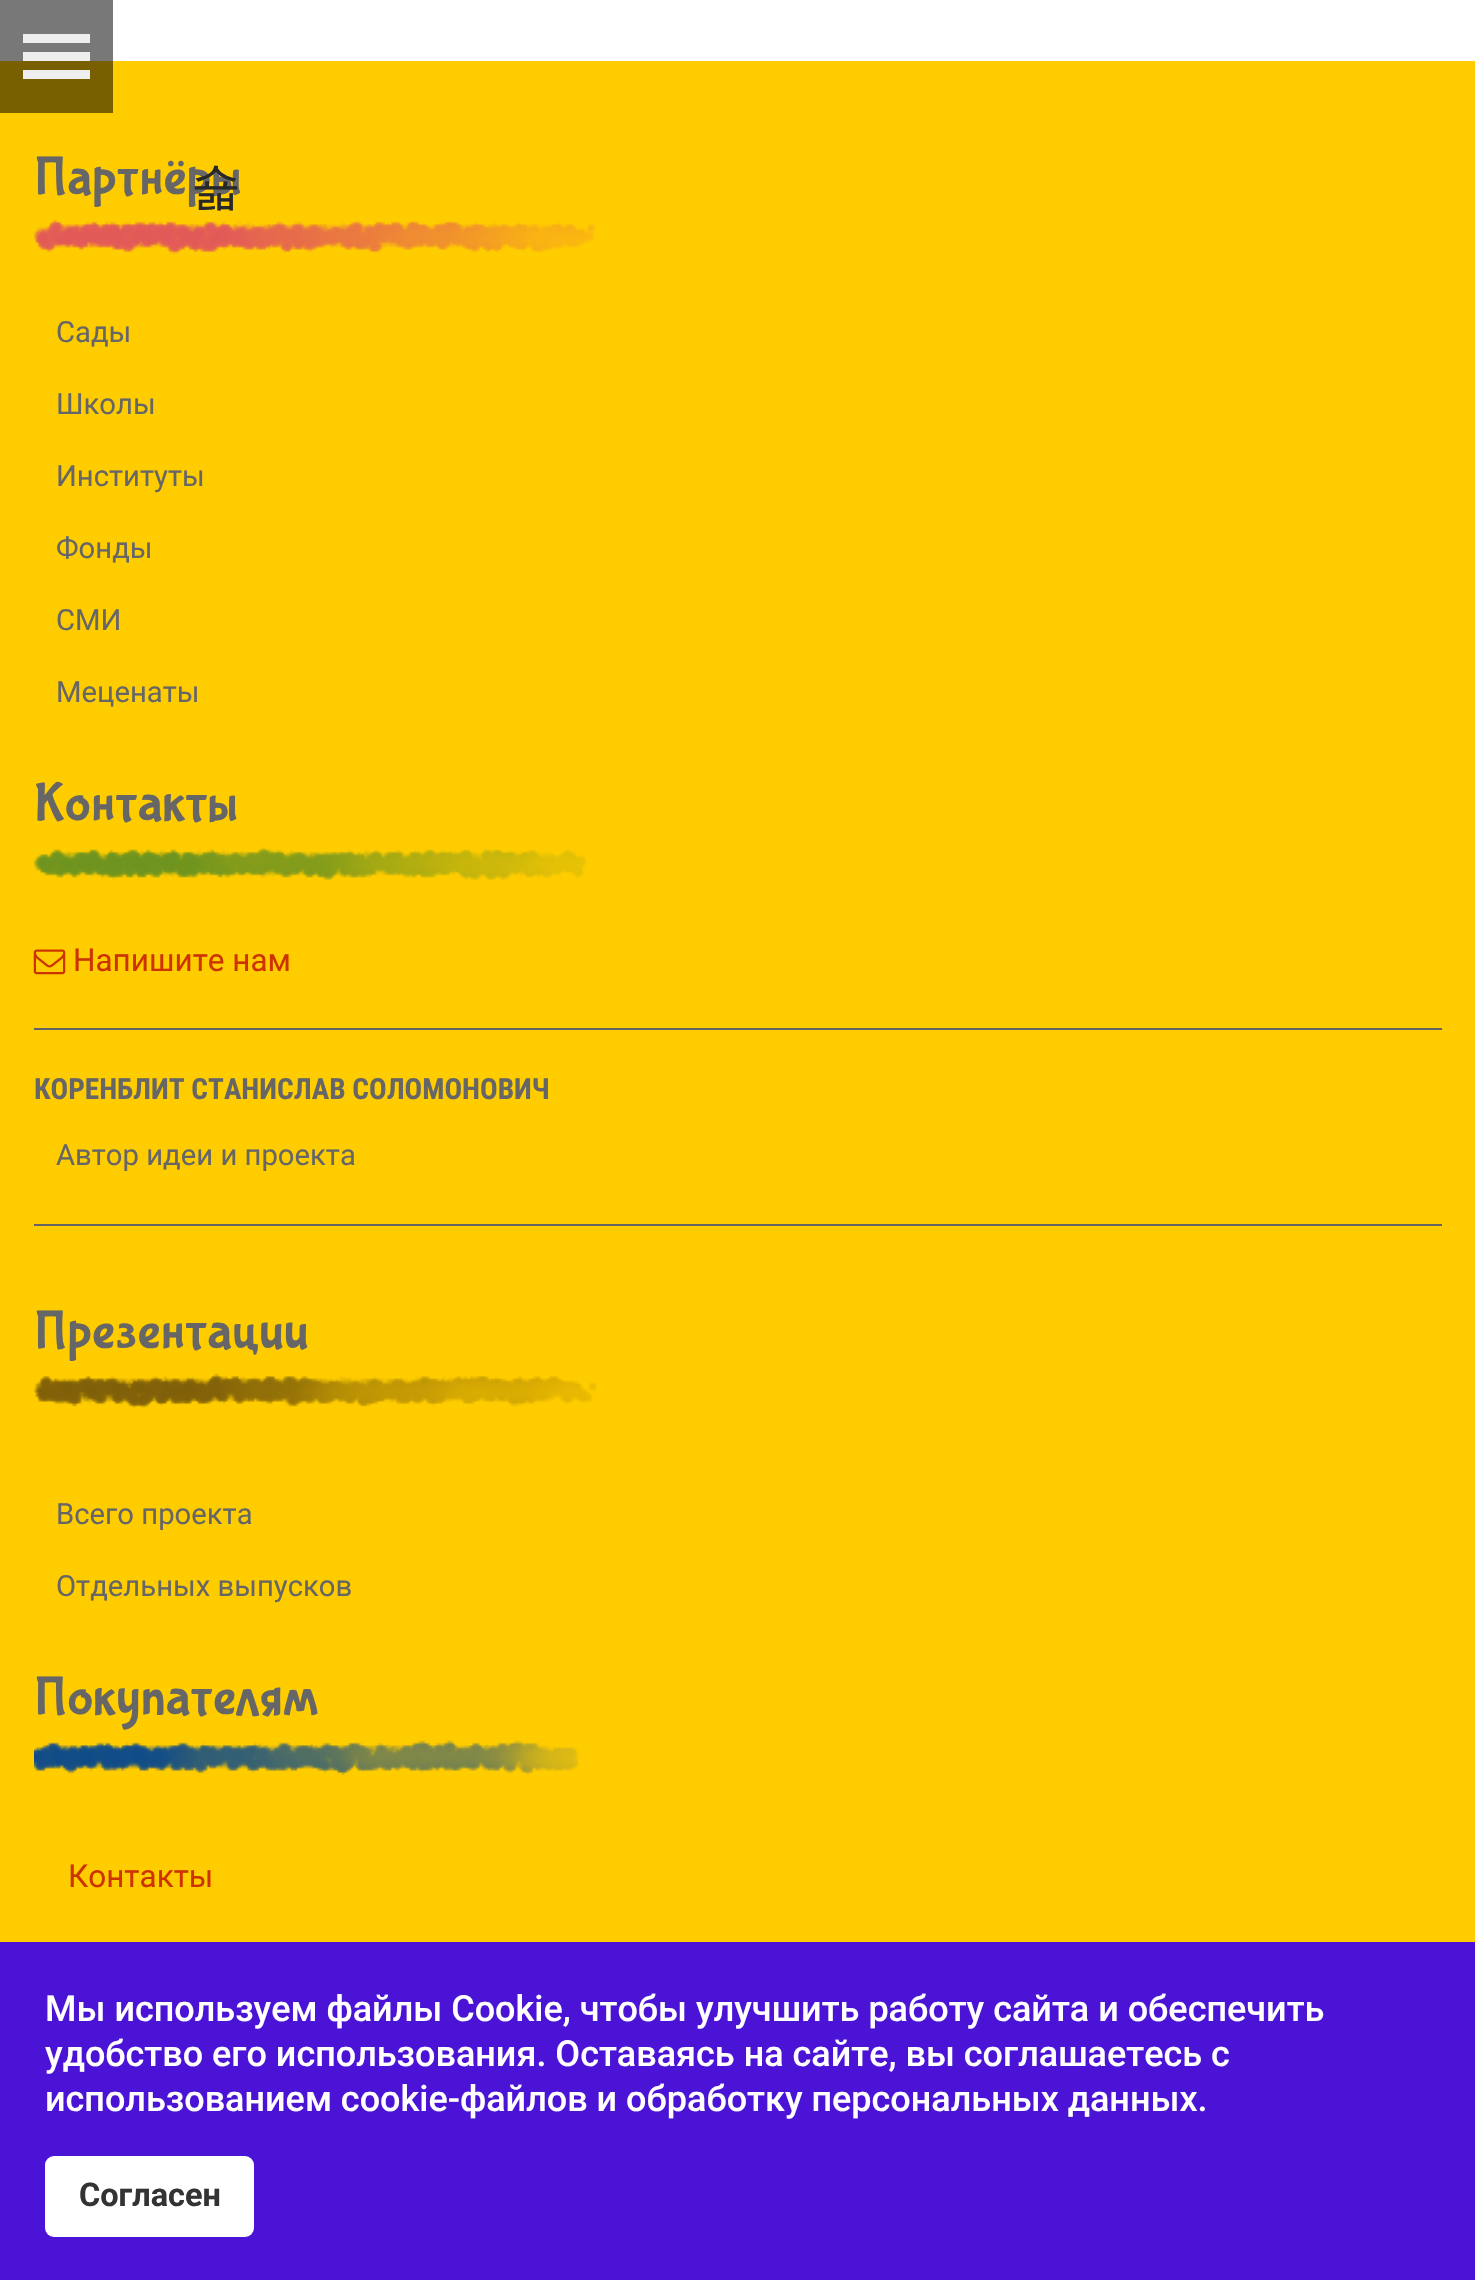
void draw(SkCanvas* canvas) {
    SkPaint paint;
    paint.setAntiAlias(true);
    auto face = [&](const char* family, int weight, float size, bool italic = false) {
        SkFontStyle style(weight, SkFontStyle::kNormal_Width,
            italic ? SkFontStyle::kItalic_Slant : SkFontStyle::kUpright_Slant);
        SkFont result(fontMgr->matchFamilyStyle(family, style), size);
        result.setSubpixel(true);
        return result;
    };
    auto write = [&](const char* s, float x, float y, const SkFont& font, SkColor color) {
        SkPaint ink(SkColor4f::FromColor(color));
        ink.setAntiAlias(true);
        canvas->drawString(s, x, y, font, ink);
    };
    auto block = [&](float x, float y, float w, float h, SkColor color) {
        SkPaint ink(SkColor4f::FromColor(color));
        ink.setAntiAlias(true);
        canvas->drawRect(SkRect::MakeXYWH(x, y, w, h), ink);
    };
    auto card = [&](float x, float y, float w, float h, float radius, SkColor color) {
        SkPaint ink(SkColor4f::FromColor(color));
        ink.setAntiAlias(true);
        canvas->drawRoundRect(SkRect::MakeXYWH(x, y, w, h), radius, radius, ink);
    };
    auto paste = [&](const char* path, float x, float y, float w, float h) {
        auto image = SkImages::DeferredFromEncodedData(SkData::MakeFromFileName(path));
        canvas->drawImageRect(image, SkRect::MakeXYWH(x, y, w, h), SkSamplingOptions());
    };
    canvas->clear(SK_ColorWHITE);
    block(0, 0, 113, 61, SkColorSetRGB(120, 120, 120));
    block(23, 34, 67, 9, SkColorSetRGB(238, 238, 238));
    block(23, 52, 67, 9, SkColorSetRGB(238, 238, 238));
    block(0, 61, 1475, 1881, SkColorSetRGB(255, 204, 0));
    block(0, 61, 113, 52, SkColorSetRGB(120, 96, 0));
    block(23, 70, 67, 9, SkColorSetRGB(238, 238, 238));
    auto kFont1 = face("Bubblegum Sans", 400, 54);
    write("Партнёры", 34, 193, kFont1, SkColorSetRGB(102, 102, 102));
    paste("pic1.png", 34, 220, 562, 35);
    auto kFont2 = face("Roboto", 400, 29.25f);
    write("Сады", 56, 342, kFont2, SkColorSetRGB(102, 102, 102));
    write("Школы", 56, 414, kFont2, SkColorSetRGB(102, 102, 102));
    write("Институты", 56, 486, kFont2, SkColorSetRGB(102, 102, 102));
    write("Фонды", 56, 558, kFont2, SkColorSetRGB(102, 102, 102));
    write("СМИ", 56, 630, kFont2, SkColorSetRGB(102, 102, 102));
    write("Меценаты", 56, 702, kFont2, SkColorSetRGB(102, 102, 102));
    write("Контакты", 34, 819, kFont1, SkColorSetRGB(102, 102, 102));
    paste("pic2.png", 34, 847, 554, 33);
    paste("pic3.png", 33, 949, 33, 26);
    auto kFont3 = face("Roboto", 400, 31.5f);
    write("Напишите нам", 73, 971, kFont3, SkColorSetRGB(204, 51, 0));
    block(34, 1028, 1408, 2, SkColorSetRGB(100, 100, 100));
    auto kFont4 = face("Roboto Condensed", 700, 29.25f);
    write("КОРЕНБЛИТ СТАНИСЛАВ СОЛОМОНОВИЧ", 34, 1099, kFont4, SkColorSetRGB(102, 102, 102));
    write("Автор идеи и проекта", 56, 1165, kFont2, SkColorSetRGB(102, 102, 102));
    block(34, 1224, 1408, 2, SkColorSetRGB(100, 100, 100));
    write("Презентации", 34, 1347, kFont1, SkColorSetRGB(102, 102, 102));
    paste("pic4.png", 34, 1374, 563, 35);
    write("Всего проекта", 56, 1524, kFont2, SkColorSetRGB(102, 102, 102));
    write("Отдельных выпусков", 56, 1596, kFont2, SkColorSetRGB(102, 102, 102));
    write("Покупателям", 34, 1713, kFont1, SkColorSetRGB(102, 102, 102));
    paste("pic5.png", 34, 1740, 545, 35);
    write("Контакты", 68, 1887, kFont3, SkColorSetRGB(204, 51, 0));
    auto kFont5 = face("WenQuanYi Zen Hei", 500, 50);
    write("숇", 191, 203, kFont5, SkColorSetRGB(40, 40, 40));
    block(0, 1942, 1475, 338, SkColorSetRGB(74, 19, 214));
    auto kFont6 = face("Roboto", 500, 36);
    write("Мы используем файлы Сookie, чтобы улучшить работу сайта и обеспечить", 45, 2021, kFont6, SK_ColorWHITE);
    write("удобство его использования. Оставаясь на сайте, вы соглашаетесь с", 45, 2066, kFont6, SK_ColorWHITE);
    write("использованием cookie-файлов и обработку персональных данных.", 45, 2111, kFont6, SK_ColorWHITE);
    card(45, 2156, 209, 81, 9, SK_ColorWHITE);
    auto kFont7 = face("Roboto", 700, 32.5f);
    write("Согласен", 79, 2206, kFont7, SkColorSetRGB(51, 51, 51));
}
